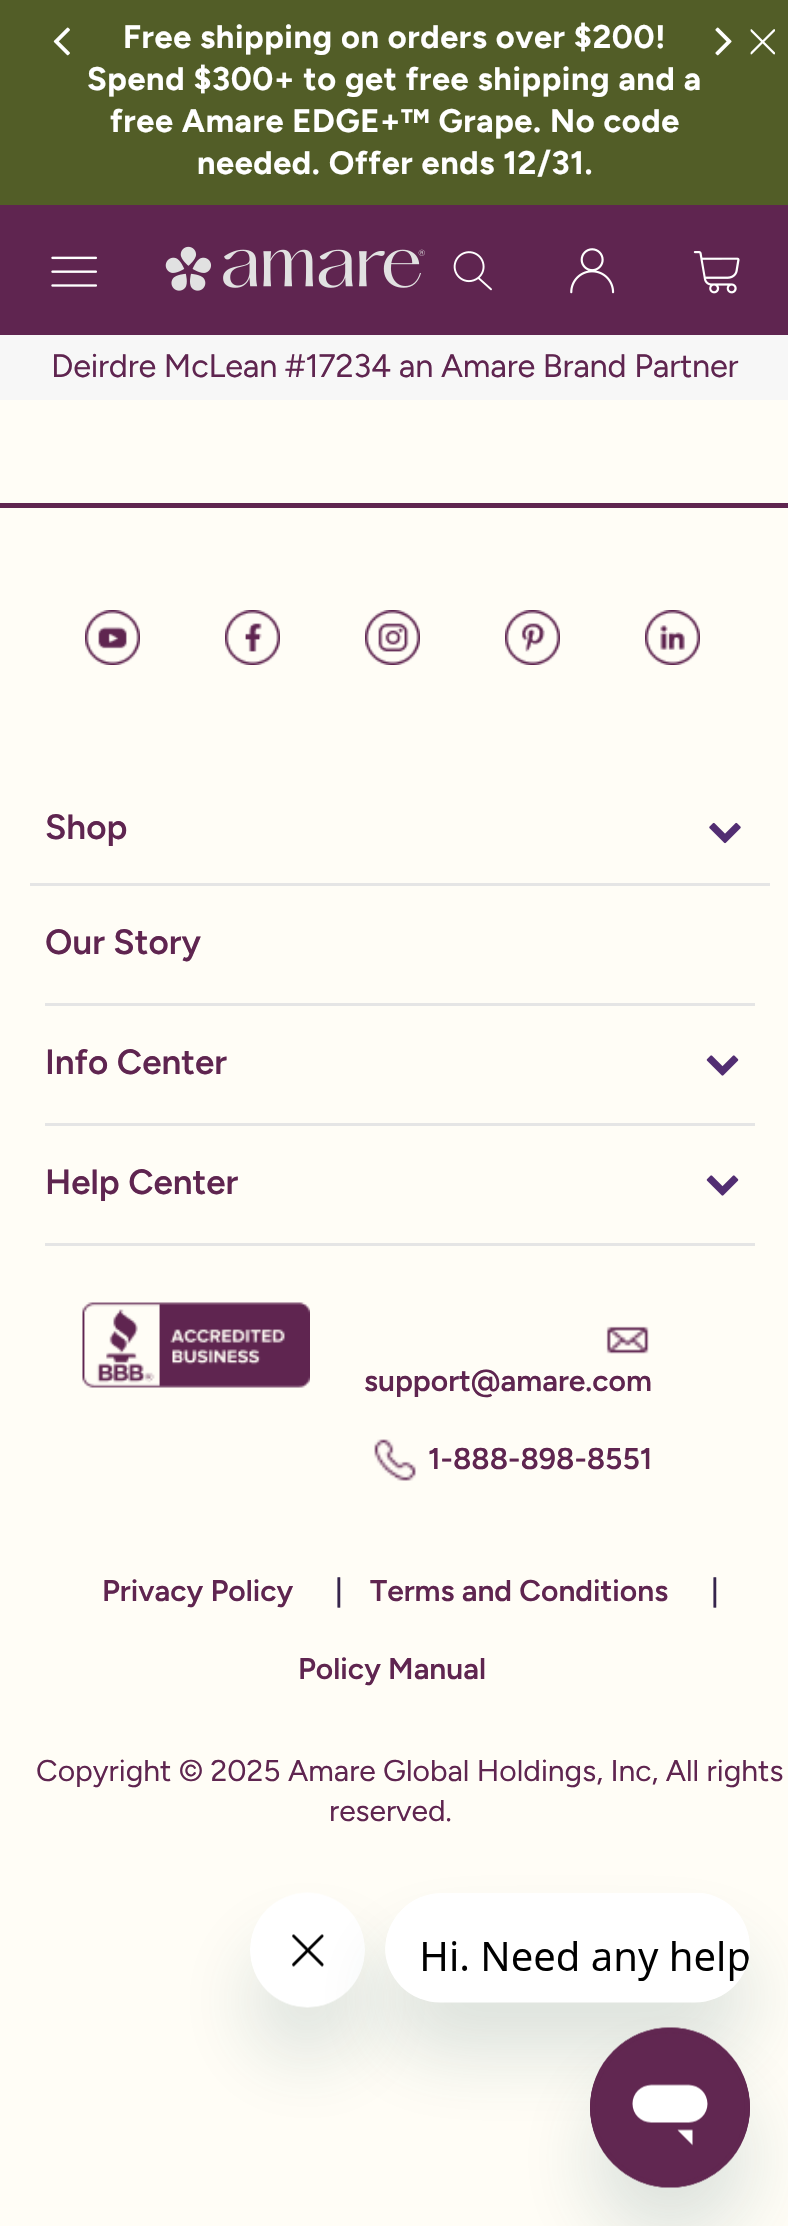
void draw(SkCanvas* canvas) {
    SkPaint paint;
    paint.setAntiAlias(true);
    auto face = [&](const char* family, int weight, float size, bool italic = false) {
        SkFontStyle style(weight, SkFontStyle::kNormal_Width,
            italic ? SkFontStyle::kItalic_Slant : SkFontStyle::kUpright_Slant);
        SkFont result(fontMgr->matchFamilyStyle(family, style), size);
        result.setSubpixel(true);
        return result;
    };
    auto write = [&](const char* s, float x, float y, const SkFont& font, SkColor color) {
        SkPaint ink(SkColor4f::FromColor(color));
        ink.setAntiAlias(true);
        canvas->drawString(s, x, y, font, ink);
    };
    auto writeSpaced = [&](const char* s, float x, float y, const SkFont& font, const SkPaint& ink, float letter, float word) {
        std::vector<SkGlyphID> glyphs(font.countText(s, strlen(s), SkTextEncoding::kUTF8));
        std::vector<float> xs(glyphs.size());
        font.textToGlyphs(s, strlen(s), SkTextEncoding::kUTF8, glyphs);
        font.getXPos(glyphs, xs, x);
        float extra = 0;
        for (size_t i = 0; i < glyphs.size(); i++) {
            xs[i] += extra;
            extra += letter + word * (glyphs[i] == font.unicharToGlyph(' '));
        }
        canvas->drawTextBlob(SkTextBlob::MakeFromPosHGlyphs(glyphs, xs, y, font), 0, 0, ink);
    };
    auto block = [&](float x, float y, float w, float h, SkColor color) {
        SkPaint ink(SkColor4f::FromColor(color));
        ink.setAntiAlias(true);
        canvas->drawRect(SkRect::MakeXYWH(x, y, w, h), ink);
    };
    auto paste = [&](const char* path, float x, float y, float w, float h) {
        auto image = SkImages::DeferredFromEncodedData(SkData::MakeFromFileName(path));
        canvas->drawImageRect(image, SkRect::MakeXYWH(x, y, w, h), SkSamplingOptions());
    };
    canvas->clear(SkColorSetRGB(255, 253, 246));
    block(0, 205, 788, 130, SkColorSetRGB(95, 37, 80));
    block(0, 0, 788, 205, SkColorSetRGB(82, 93, 39));
    paste("pic1.png", 53, 27, 17, 29);
    auto kFont1 = face("Figtree", 700, 32.5f);
    paint.setColor(SK_ColorWHITE);
    writeSpaced("Free shipping on orders over $200!", 123, 48, kFont1, paint, 0.6f, 0);
    writeSpaced("Spend $300+ to get free shipping and a", 87, 90, kFont1, paint, 0.6f, 0);
    writeSpaced("free Amare EDGE+™ Grape. No code", 110, 132, kFont1, paint, 0.6f, 0);
    writeSpaced("needed. Offer ends 12/31.", 197, 174, kFont1, paint, 0.6f, 0);
    paste("pic2.png", 715, 27, 17, 29);
    paste("pic3.png", 750, 29, 25, 26);
    paste("pic4.png", 51, 256, 46, 31);
    paste("pic5.png", 165, 246, 260, 45);
    paste("pic6.png", 453, 251, 39, 40);
    paste("pic7.png", 570, 248, 45, 46);
    paste("pic8.png", 693, 251, 47, 43);
    block(0, 335, 788, 65, SkColorSetRGB(247, 247, 247));
    auto kFont2 = face("Figtree", 400, 32.5f);
    paint.setColor(SkColorSetRGB(95, 37, 80));
    writeSpaced("Deirdre McLean #17234 an Amare Brand Partner", 51, 377, kFont2, paint, -0.2f, 0);
    block(0, 503, 788, 5, SkColorSetRGB(95, 37, 80));
    paste("pic9.png", 85, 610, 55, 55);
    paste("pic10.png", 225, 610, 55, 55);
    paste("pic11.png", 365, 610, 55, 55);
    paste("pic12.png", 505, 610, 55, 55);
    paste("pic13.png", 645, 610, 55, 55);
    block(30, 883, 740, 3, SkColorSetRGB(229, 229, 229));
    auto kFont3 = face("Figtree", 600, 35);
    write("Shop", 45, 839, kFont3, SkColorSetRGB(95, 37, 80));
    paste("pic14.png", 709, 822, 32, 22);
    block(45, 1003, 710, 3, SkColorSetRGB(229, 229, 229));
    write("Our Story", 45, 954, kFont3, SkColorSetRGB(95, 37, 80));
    block(45, 1123, 710, 3, SkColorSetRGB(229, 229, 229));
    write("Info Center", 45, 1074, kFont3, SkColorSetRGB(95, 37, 80));
    paste("pic15.png", 706, 1055, 33, 21);
    block(45, 1243, 710, 3, SkColorSetRGB(229, 229, 229));
    write("Help Center", 45, 1194, kFont3, SkColorSetRGB(95, 37, 80));
    paste("pic15.png", 706, 1175, 33, 21);
    paste("pic16.png", 82, 1302, 228, 86);
    paste("pic17.png", 606, 1326, 43, 28);
    auto kFont4 = face("Figtree", 600, 30);
    write("support@amare.com", 364, 1391, kFont4, SkColorSetRGB(95, 37, 80));
    paste("pic18.png", 374, 1439, 42, 42);
    write("1-888-898-8551", 428, 1469, kFont4, SkColorSetRGB(95, 37, 80));
    write("Privacy Policy", 102, 1601, kFont4, SkColorSetRGB(95, 37, 80));
    write("|", 335, 1601, kFont4, SkColorSetRGB(54, 37, 76));
    write("Terms and Conditions", 370, 1601, kFont4, SkColorSetRGB(95, 37, 80));
    write("|", 711, 1601, kFont4, SkColorSetRGB(54, 37, 76));
    write("Policy Manual", 298, 1679, kFont4, SkColorSetRGB(95, 37, 80));
    auto kFont5 = face("Figtree", 400, 30);
    write("Copyright © 2025 Amare Global Holdings, Inc, All rights", 36, 1781, kFont5, SkColorSetRGB(95, 37, 80));
    write("reserved.", 329, 1821, kFont5, SkColorSetRGB(95, 37, 80));
    paint.setColor(SkColorSetARGB(38, 23, 73, 77));
    paint.setMaskFilter(SkMaskFilter::MakeBlur(kNormal_SkBlurStyle, 37.5f));
    canvas->drawRoundRect(SkRect::MakeXYWH(250, 1943, 115, 115), 57.5f, 57.5f, paint);
    paint.setMaskFilter(nullptr);
    paste("pic19.png", 250, 1892, 115, 116);
    paint.setMaskFilter(SkMaskFilter::MakeBlur(kNormal_SkBlurStyle, 37.5f));
    canvas->drawRoundRect(SkRect::MakeXYWH(385, 1943, 365, 110), 55, 55, paint);
    paint.setMaskFilter(nullptr);
    paste("pic20.png", 385, 1893, 365, 110);
    paint.setMaskFilter(SkMaskFilter::MakeBlur(kNormal_SkBlurStyle, 37.5f));
    canvas->drawRoundRect(SkRect::MakeXYWH(590, 2078, 160, 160), 80, 80, paint);
    paint.setMaskFilter(nullptr);
    paste("pic21.png", 590, 2027, 160, 161);
}
